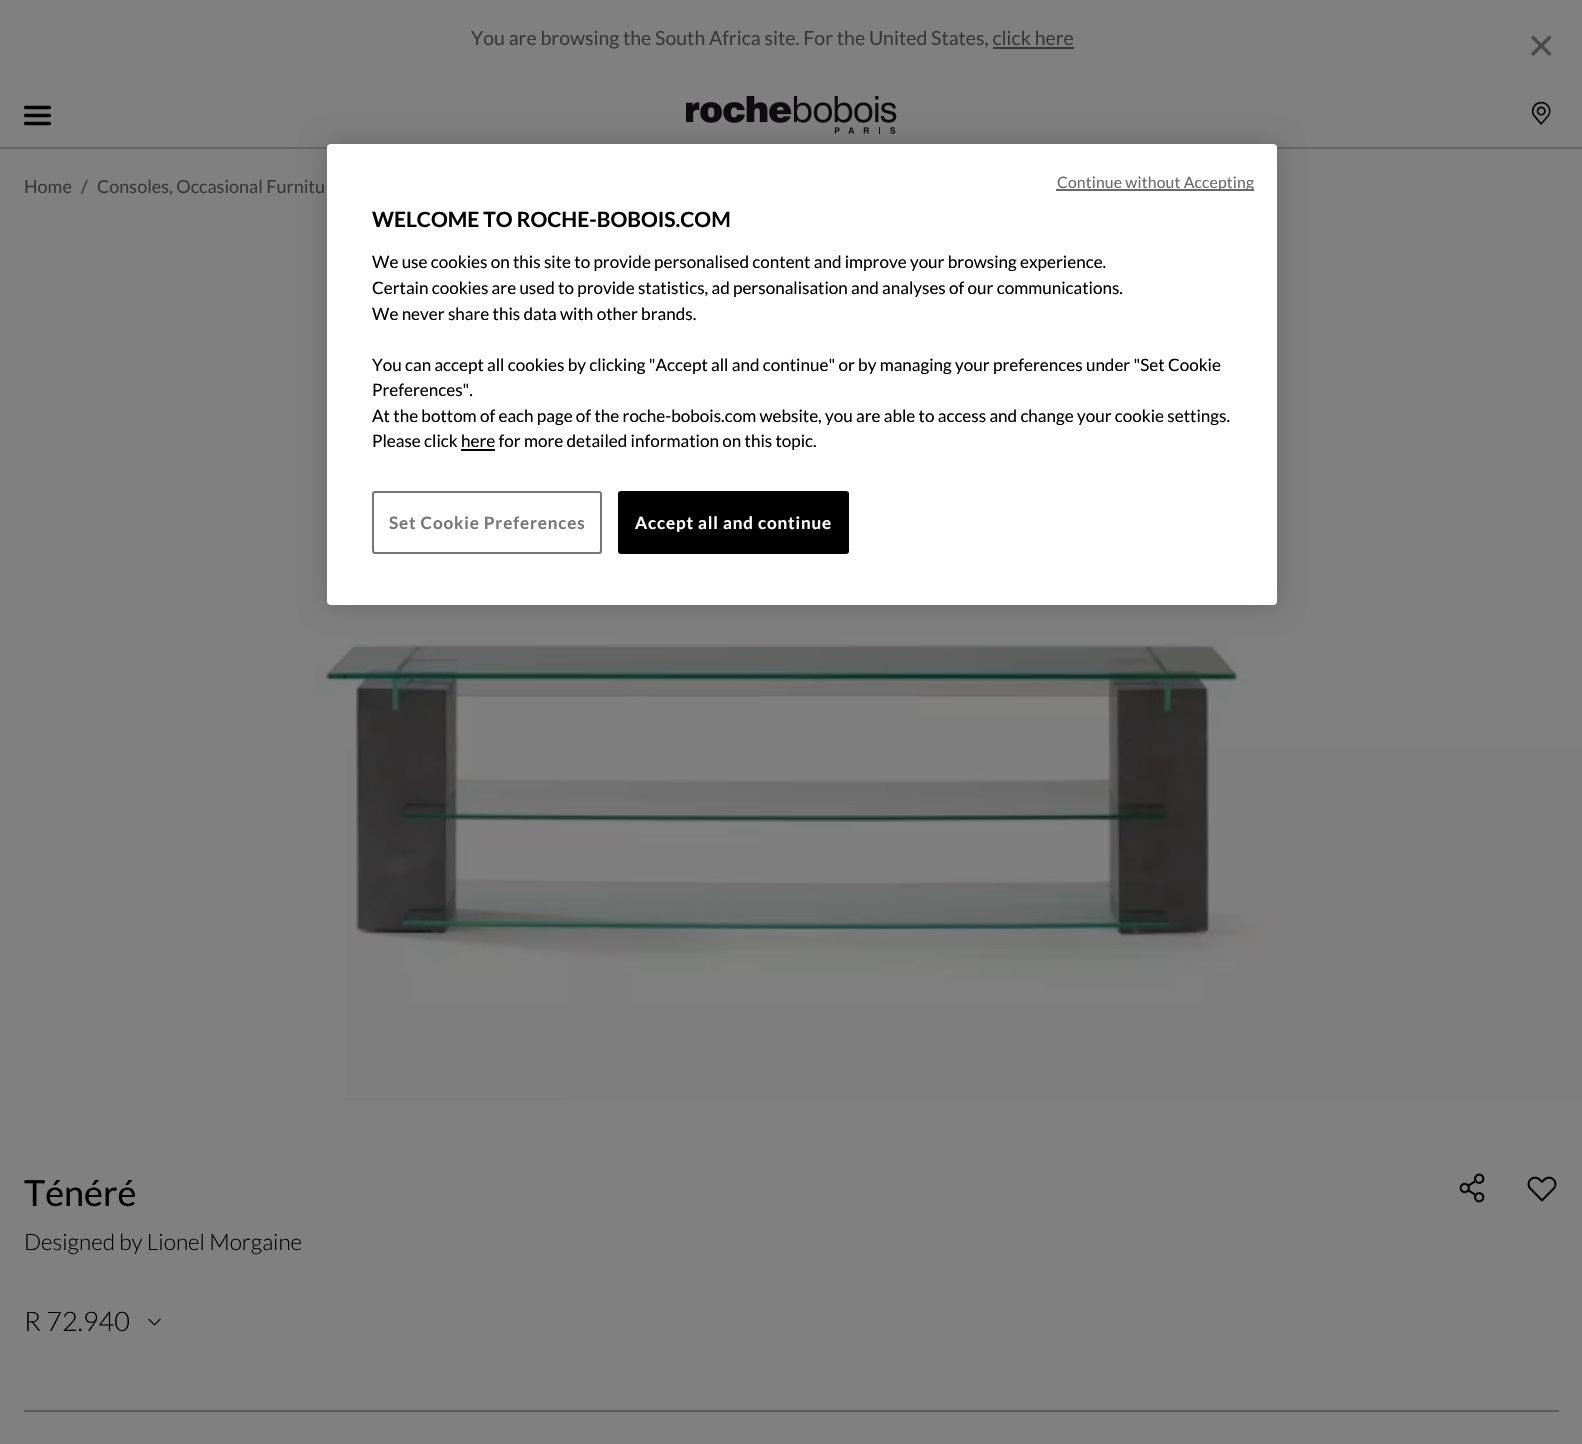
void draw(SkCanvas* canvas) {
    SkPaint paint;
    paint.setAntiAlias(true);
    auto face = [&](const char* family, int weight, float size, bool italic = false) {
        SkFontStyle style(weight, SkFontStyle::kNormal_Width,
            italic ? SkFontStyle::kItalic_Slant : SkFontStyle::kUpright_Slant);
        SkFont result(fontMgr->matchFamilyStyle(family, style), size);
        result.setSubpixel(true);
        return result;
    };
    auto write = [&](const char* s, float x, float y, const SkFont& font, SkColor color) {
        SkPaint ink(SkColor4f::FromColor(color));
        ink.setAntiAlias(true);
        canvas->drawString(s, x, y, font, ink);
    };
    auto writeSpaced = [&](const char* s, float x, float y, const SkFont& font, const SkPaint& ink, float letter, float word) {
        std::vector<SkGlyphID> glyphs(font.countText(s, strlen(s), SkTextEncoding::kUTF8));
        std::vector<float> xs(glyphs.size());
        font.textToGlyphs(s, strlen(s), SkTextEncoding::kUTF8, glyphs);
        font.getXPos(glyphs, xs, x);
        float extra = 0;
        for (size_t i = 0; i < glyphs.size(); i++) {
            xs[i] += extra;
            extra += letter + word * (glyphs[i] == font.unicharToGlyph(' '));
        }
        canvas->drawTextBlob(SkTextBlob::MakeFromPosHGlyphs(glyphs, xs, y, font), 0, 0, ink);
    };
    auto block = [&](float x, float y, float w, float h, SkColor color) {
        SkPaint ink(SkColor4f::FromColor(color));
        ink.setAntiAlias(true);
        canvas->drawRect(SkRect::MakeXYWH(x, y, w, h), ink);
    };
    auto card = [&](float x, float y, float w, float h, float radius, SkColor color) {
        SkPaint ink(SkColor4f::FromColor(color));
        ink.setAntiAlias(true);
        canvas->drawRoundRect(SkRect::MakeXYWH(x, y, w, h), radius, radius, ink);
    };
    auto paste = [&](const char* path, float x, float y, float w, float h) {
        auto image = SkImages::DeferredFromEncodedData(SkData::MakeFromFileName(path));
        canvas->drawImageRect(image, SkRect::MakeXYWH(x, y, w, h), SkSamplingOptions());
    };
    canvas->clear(SkColorSetRGB(128, 128, 128));
    block(0, 147, 1582, 2, SkColorSetRGB(102, 102, 102));
    auto kFont1 = face("Lato", 400, 19.5f);
    write("You are browsing the South Africa site. For the United States, click here", 471, 45, kFont1, SkColorSetRGB(56, 56, 56));
    paste("pic1.png", 1531, 35, 21, 21);
    block(993, 47, 81, 2, SkColorSetRGB(56, 56, 56));
    paint.setStyle(SkPaint::kStroke_Style);
    paint.setStrokeWidth(3.3f);
    paint.setStrokeCap(SkPaint::kRound_Cap);
    paint.setColor(SK_ColorBLACK);
    canvas->drawPath(SkPathBuilder().moveTo(25.5f, 107.5f).lineTo(49.5f, 107.5f).moveTo(25.5f, 115.5f).lineTo(49.5f, 115.5f).moveTo(25.5f, 123.5f).lineTo(49.5f, 123.5f).detach(), paint);
    paste("pic2.png", 686, 96, 211, 38);
    paste("pic3.png", 1531, 101, 20, 24);
    auto kFont2 = face("Lato", 400, 18);
    write("Home", 24, 193, kFont2, SkColorSetRGB(56, 56, 56));
    write("/", 81, 193, kFont2, SkColorSetRGB(56, 56, 56));
    write("Consoles, Occasional Furnitu", 97, 193, kFont2, SkColorSetRGB(56, 56, 56));
    paint.setStyle(SkPaint::kFill_Style);
    {
        const SkColor colors[] = {SkColorSetRGB(121, 121, 121), SkColorSetRGB(127, 127, 127)};
        const float stops[] = {0, 1};
        const SkPoint ends[] = {{160, 45}, {1423, 1265}};
        paint.setShader(SkGradientShader::MakeLinear(ends, colors, stops, 2, SkTileMode::kClamp));
        paint.setAlpha(255);
    }
    canvas->drawRect(SkRect::MakeXYWH(0, 1099, 973, 1), paint);
    paste("pic4.png", 0, 210, 1582, 890);
    auto kFont3 = face("Lato", 400, 36);
    write("Ténéré", 24, 1206, kFont3, SK_ColorBLACK);
    auto kFont4 = face("Lato", 300, 22.5f);
    write("Designed by Lionel Morgaine", 24, 1250, kFont4, SK_ColorBLACK);
    paste("pic5.png", 1459, 1173, 26, 30);
    paste("pic6.png", 1527, 1176, 30, 26);
    auto kFont5 = face("Lato", 300, 27);
    write("R 72.940", 24, 1331, kFont5, SK_ColorBLACK);
    paste("pic7.png", 148, 1318, 13, 8);
    block(24, 1410, 1535, 2, SkColorSetRGB(91, 91, 91));
    paint.setShader(nullptr);
    paint.setColor(SkColorSetARGB(51, 0, 0, 0));
    paint.setMaskFilter(SkMaskFilter::MakeBlur(kNormal_SkBlurStyle, 13.5f));
    canvas->drawRoundRect(SkRect::MakeXYWH(327, 144, 950, 461), 4, 4, paint);
    paint.setMaskFilter(nullptr);
    card(327, 144, 950, 461, 4, SK_ColorWHITE);
    block(1056, 189, 198, 2, SkColorSetRGB(105, 105, 105));
    auto kFont6 = face("Lato", 400, 15.75f);
    paint.setColor(SkColorSetRGB(105, 105, 105));
    writeSpaced("Continue without Accepting", 1057, 188, kFont6, paint, 0.15f, 0);
    auto kFont7 = face("Lato", 700, 21);
    write("WELCOME TO ROCHE-BOBOIS.COM", 372, 227, kFont7, SK_ColorBLACK);
    auto kFont8 = face("Lato", 400, 17.07f);
    write("We use cookies on this site to provide personalised content and improve your browsing experience.", 372, 268, kFont8, SK_ColorBLACK);
    write("Certain cookies are used to provide statistics, ad personalisation and analyses of our communications.", 372, 294, kFont8, SK_ColorBLACK);
    write("We never share this data with other brands.", 372, 320, kFont8, SK_ColorBLACK);
    write("You can accept all cookies by clicking \"Accept all and continue\" or by managing your preferences under \"Set Cookie", 372, 371, kFont8, SK_ColorBLACK);
    write("Preferences\".", 372, 396, kFont8, SK_ColorBLACK);
    write("At the bottom of each page of the roche-bobois.com website, you are able to access and change your cookie settings.", 372, 422, kFont8, SK_ColorBLACK);
    write("Please click here for more detailed information on this topic.", 372, 447, kFont8, SK_ColorBLACK);
    block(461, 449, 34, 2, SK_ColorBLACK);
    paint.setStyle(SkPaint::kStroke_Style);
    paint.setStrokeWidth(2);
    paint.setStrokeCap(SkPaint::kButt_Cap);
    paint.setColor(SkColorSetRGB(118, 118, 118));
    canvas->drawRoundRect(SkRect::MakeXYWH(373, 492, 228, 61), 2, 2, paint);
    auto kFont9 = face("Lato", 700, 17.07f);
    paint.setStyle(SkPaint::kFill_Style);
    writeSpaced("Set Cookie Preferences", 389, 529, kFont9, paint, 0.85f, 0);
    paint.setColor(SK_ColorBLACK);
    canvas->drawRoundRect(SkRect::MakeXYWH(619, 492, 229, 61), 2, 2, paint);
    paint.setStyle(SkPaint::kStroke_Style);
    canvas->drawRoundRect(SkRect::MakeXYWH(619, 492, 229, 61), 2, 2, paint);
    paint.setStyle(SkPaint::kFill_Style);
    paint.setColor(SK_ColorWHITE);
    writeSpaced("Accept all and continue", 635, 529, kFont9, paint, 0.85f, 0);
}
